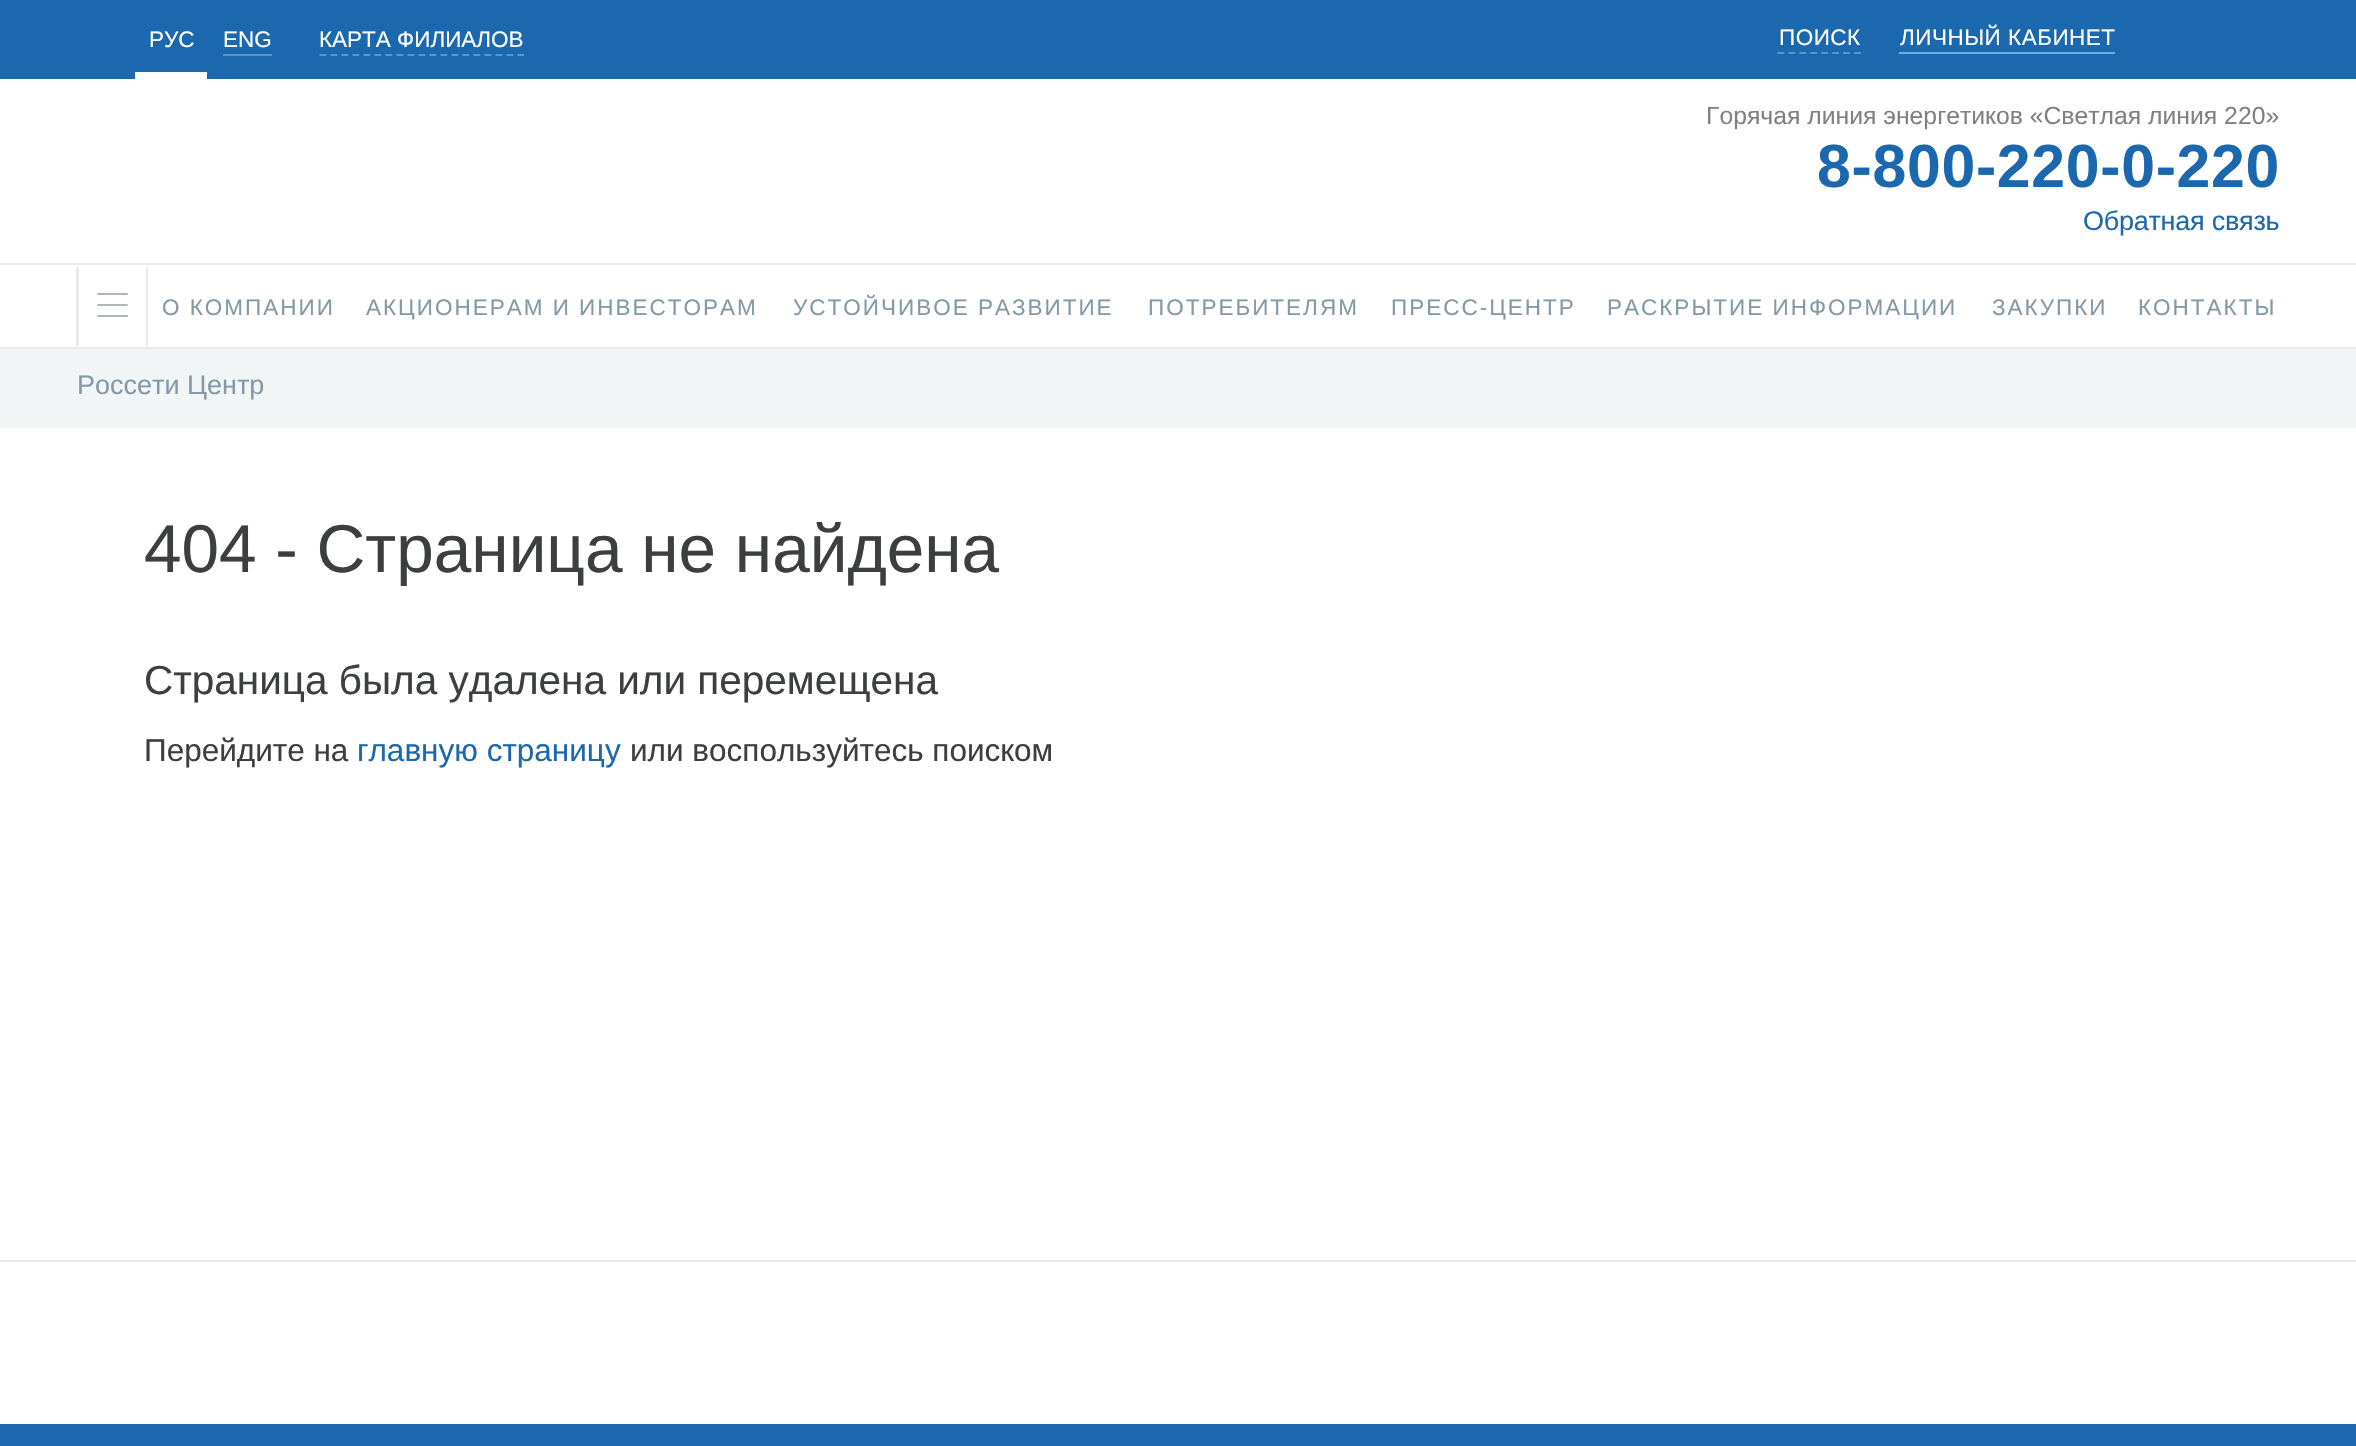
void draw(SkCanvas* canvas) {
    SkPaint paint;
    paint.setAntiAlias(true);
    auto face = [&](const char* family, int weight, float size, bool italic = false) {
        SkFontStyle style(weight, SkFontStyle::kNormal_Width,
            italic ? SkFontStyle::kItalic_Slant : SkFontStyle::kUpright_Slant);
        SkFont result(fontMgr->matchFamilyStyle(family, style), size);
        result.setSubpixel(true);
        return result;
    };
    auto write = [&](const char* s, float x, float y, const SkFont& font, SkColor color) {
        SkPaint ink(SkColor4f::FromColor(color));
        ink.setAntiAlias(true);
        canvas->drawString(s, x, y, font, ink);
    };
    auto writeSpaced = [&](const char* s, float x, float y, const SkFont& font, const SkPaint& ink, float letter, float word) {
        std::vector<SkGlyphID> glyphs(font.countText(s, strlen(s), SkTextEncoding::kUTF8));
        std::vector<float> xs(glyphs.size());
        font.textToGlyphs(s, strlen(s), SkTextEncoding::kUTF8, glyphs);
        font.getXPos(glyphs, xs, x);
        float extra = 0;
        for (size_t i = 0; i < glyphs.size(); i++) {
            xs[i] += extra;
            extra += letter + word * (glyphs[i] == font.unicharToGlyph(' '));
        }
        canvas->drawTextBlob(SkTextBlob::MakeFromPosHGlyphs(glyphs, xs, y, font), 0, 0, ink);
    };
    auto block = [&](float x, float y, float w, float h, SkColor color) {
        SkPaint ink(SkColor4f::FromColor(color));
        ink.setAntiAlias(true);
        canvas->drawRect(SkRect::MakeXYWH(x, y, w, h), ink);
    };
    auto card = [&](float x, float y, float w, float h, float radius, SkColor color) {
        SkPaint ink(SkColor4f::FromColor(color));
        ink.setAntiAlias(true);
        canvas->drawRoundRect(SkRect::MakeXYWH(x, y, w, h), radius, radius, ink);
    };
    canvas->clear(SK_ColorWHITE);
    block(0, 0, 2356, 79, SkColorSetRGB(27, 104, 174));
    block(135, 72, 72, 7, SK_ColorWHITE);
    auto kFont1 = face("Liberation Sans", 400, 22.5f);
    write("РУС", 149, 47, kFont1, SK_ColorWHITE);
    block(223, 54, 49, 2, SkColorSetRGB(95, 149, 198));
    write("ENG", 223, 47, kFont1, SK_ColorWHITE);
    paint.setStyle(SkPaint::kStroke_Style);
    paint.setStrokeWidth(2.2f);
    paint.setColor(SkColorSetRGB(95, 149, 198));
    paint.setPathEffect(SkDashPathEffect::Make({{6.75f, 4.25f}}, 0));
    canvas->drawPath(SkPathBuilder().moveTo(319.5f, 55).lineTo(524, 55).detach(), paint);
    paint.setPathEffect(nullptr);
    write("КАРТА ФИЛИАЛОВ", 319, 47, kFont1, SK_ColorWHITE);
    paint.setPathEffect(SkDashPathEffect::Make({{6.75f, 4.19f}}, 0));
    canvas->drawPath(SkPathBuilder().moveTo(1777.5f, 53).lineTo(1861, 53).detach(), paint);
    paint.setPathEffect(nullptr);
    paint.setStyle(SkPaint::kFill_Style);
    paint.setColor(SK_ColorWHITE);
    writeSpaced("ПОИСК", 1779, 45, kFont1, paint, 0.5f, 0);
    block(1899, 52, 216, 2, SkColorSetRGB(111, 173, 229));
    writeSpaced("ЛИЧНЫЙ КАБИНЕТ", 1900, 45, kFont1, paint, 0.5f, 0);
    block(0, 263, 2356, 2, SkColorSetRGB(233, 233, 233));
    auto kFont2 = face("Liberation Sans", 400, 24.75f);
    write("Горячая линия энергетиков «Светлая линия 220»", 1706, 124, kFont2, SkColorSetRGB(128, 127, 131));
    auto kFont3 = face("Liberation Sans", 700, 60.75f);
    paint.setColor(SkColorSetRGB(27, 104, 174));
    writeSpaced("8-800-220-0-220", 1817, 187, kFont3, paint, 0.7f, 0);
    auto kFont4 = face("Liberation Sans", 400, 27);
    writeSpaced("Обратная связь", 2083, 230, kFont4, paint, -0.25f, 0);
    block(0, 347, 2356, 2, SkColorSetRGB(233, 233, 233));
    paint.setColor(SkColorSetRGB(233, 233, 233));
    canvas->drawPath(SkPathBuilder().moveTo(148, 266).lineTo(148, 346).lineTo(146, 346).lineTo(146, 268).close().detach(), paint);
    canvas->drawPath(SkPathBuilder().moveTo(76, 346).lineTo(76, 266).lineTo(79, 268).lineTo(79, 346).close().detach(), paint);
    card(97, 304, 31, 2, 1, SkColorSetRGB(176, 183, 188));
    card(97, 293, 31, 2, 1, SkColorSetRGB(176, 183, 188));
    card(97, 315, 31, 2, 1, SkColorSetRGB(176, 183, 188));
    paint.setColor(SkColorSetRGB(132, 153, 167));
    writeSpaced("О КОМПАНИИ", 162, 315, kFont1, paint, 2, 0);
    writeSpaced("АКЦИОНЕРАМ И ИНВЕСТОРАМ", 366, 315, kFont1, paint, 2, 0);
    writeSpaced("УСТОЙЧИВОЕ РАЗВИТИЕ", 793, 315, kFont1, paint, 2, 0);
    writeSpaced("ПОТРЕБИТЕЛЯМ", 1148, 315, kFont1, paint, 2, 0);
    writeSpaced("ПРЕСС-ЦЕНТР", 1391, 315, kFont1, paint, 2, 0);
    writeSpaced("РАСКРЫТИЕ ИНФОРМАЦИИ", 1607, 315, kFont1, paint, 2, 0);
    writeSpaced("ЗАКУПКИ", 1992, 315, kFont1, paint, 2, 0);
    writeSpaced("КОНТАКТЫ", 2138, 315, kFont1, paint, 2, 0);
    block(0, 349, 2356, 79, SkColorSetRGB(242, 245, 246));
    write("Россети Центр", 77, 394, kFont4, SkColorSetRGB(132, 153, 167));
    auto kFont5 = face("Liberation Sans", 400, 67.5f);
    write("404 - Страница не найдена", 144, 572, kFont5, SkColorSetRGB(60, 62, 64));
    auto kFont6 = face("Liberation Sans", 400, 40.5f);
    write("Страница была удалена или перемещена", 144, 694, kFont6, SkColorSetRGB(60, 62, 64));
    auto kFont7 = face("Liberation Sans", 400, 31.5f);
    write("Перейдите на", 144, 761, kFont7, SkColorSetRGB(60, 62, 64));
    write("главную страницу", 357, 761, kFont7, SkColorSetRGB(27, 104, 174));
    write("или воспользуйтесь поиском", 630, 761, kFont7, SkColorSetRGB(60, 62, 64));
    block(0, 1260, 2356, 2, SkColorSetRGB(233, 233, 233));
    block(0, 1424, 2356, 22, SkColorSetRGB(27, 104, 174));
}
